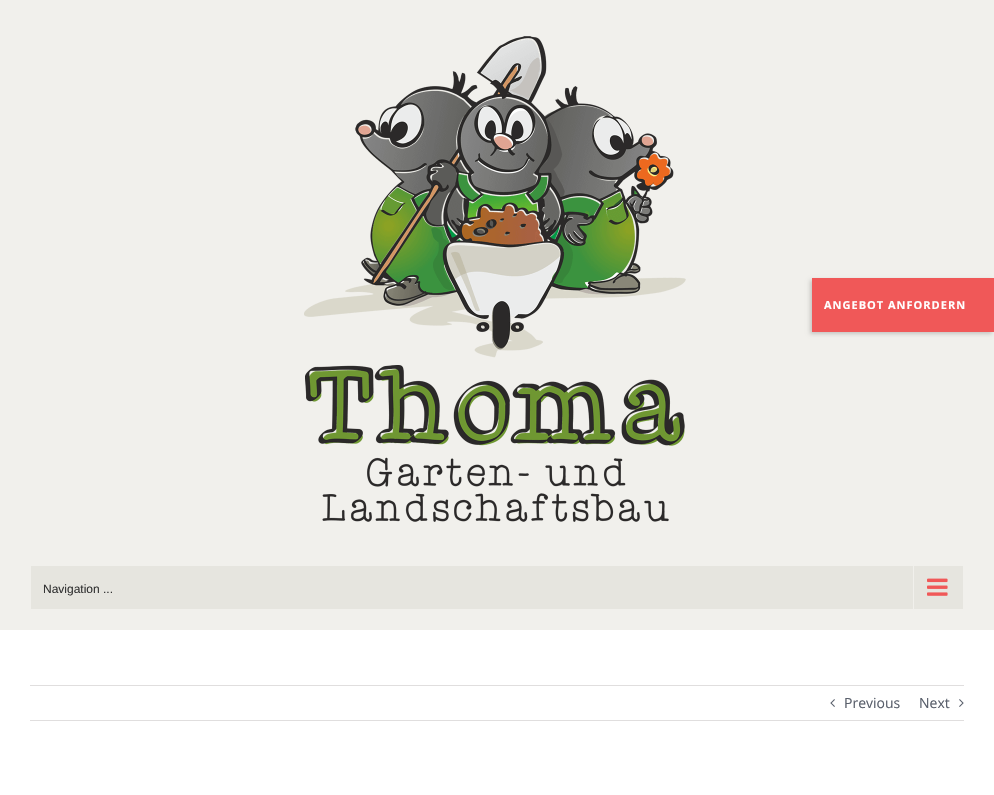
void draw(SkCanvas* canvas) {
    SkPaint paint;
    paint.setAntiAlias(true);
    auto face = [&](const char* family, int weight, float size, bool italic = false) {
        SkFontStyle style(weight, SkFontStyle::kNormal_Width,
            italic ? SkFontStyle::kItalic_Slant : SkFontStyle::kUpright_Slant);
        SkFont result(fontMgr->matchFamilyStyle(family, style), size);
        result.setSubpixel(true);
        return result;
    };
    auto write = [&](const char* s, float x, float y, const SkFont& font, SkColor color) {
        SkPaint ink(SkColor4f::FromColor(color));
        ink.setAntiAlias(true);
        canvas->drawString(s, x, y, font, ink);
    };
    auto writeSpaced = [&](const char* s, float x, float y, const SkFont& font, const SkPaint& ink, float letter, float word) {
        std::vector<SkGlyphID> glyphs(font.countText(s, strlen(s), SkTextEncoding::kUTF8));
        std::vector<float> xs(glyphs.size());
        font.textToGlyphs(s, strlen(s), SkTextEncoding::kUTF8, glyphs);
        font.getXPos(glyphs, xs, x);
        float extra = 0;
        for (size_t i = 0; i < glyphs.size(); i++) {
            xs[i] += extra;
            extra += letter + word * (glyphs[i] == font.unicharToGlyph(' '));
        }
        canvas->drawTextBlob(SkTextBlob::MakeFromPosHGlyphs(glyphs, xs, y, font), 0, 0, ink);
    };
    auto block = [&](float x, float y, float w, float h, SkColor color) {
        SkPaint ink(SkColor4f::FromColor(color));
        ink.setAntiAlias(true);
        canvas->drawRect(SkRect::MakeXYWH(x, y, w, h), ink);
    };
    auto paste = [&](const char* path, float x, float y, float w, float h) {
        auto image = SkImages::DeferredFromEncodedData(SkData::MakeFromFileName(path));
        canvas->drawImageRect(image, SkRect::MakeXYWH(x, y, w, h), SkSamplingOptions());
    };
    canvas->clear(SK_ColorWHITE);
    block(0, 0, 994, 630, SkColorSetRGB(241, 240, 236));
    paint.setColor(SkColorSetARGB(46, 0, 0, 0));
    paint.setMaskFilter(SkMaskFilter::MakeBlur(kNormal_SkBlurStyle, 2));
    canvas->drawRect(SkRect::MakeXYWH(810, 280, 182, 54), paint);
    paint.setMaskFilter(nullptr);
    block(812, 278, 182, 54, SkColorSetRGB(240, 88, 88));
    auto kFont1 = face("Open Sans", 700, 11);
    paint.setColor(SK_ColorWHITE);
    writeSpaced("ANGEBOT ANFORDERN", 824, 309, kFont1, paint, 1, 0);
    paste("pic1.png", 304, 36, 382, 486);
    block(31, 566, 932, 43, SkColorSetRGB(230, 229, 223));
    auto kFont2 = face("Liberation Sans", 400, 12);
    write("Navigation ...", 43, 593, kFont2, SkColorSetRGB(51, 51, 51));
    block(913, 566, 1, 43, SkColorSetRGB(241, 240, 236));
    paste("pic2.png", 927, 578, 21, 18);
    block(30, 685, 934, 1, SkColorSetRGB(224, 222, 222));
    block(30, 720, 934, 1, SkColorSetRGB(224, 222, 222));
    paste("pic3.png", 830, 699, 5, 8);
    auto kFont3 = face("Open Sans", 400, 14);
    write("Previous", 844, 708, kFont3, SkColorSetRGB(89, 95, 107));
    write("Next", 919, 708, kFont3, SkColorSetRGB(89, 95, 107));
    paste("pic4.png", 959, 699, 5, 8);
}
